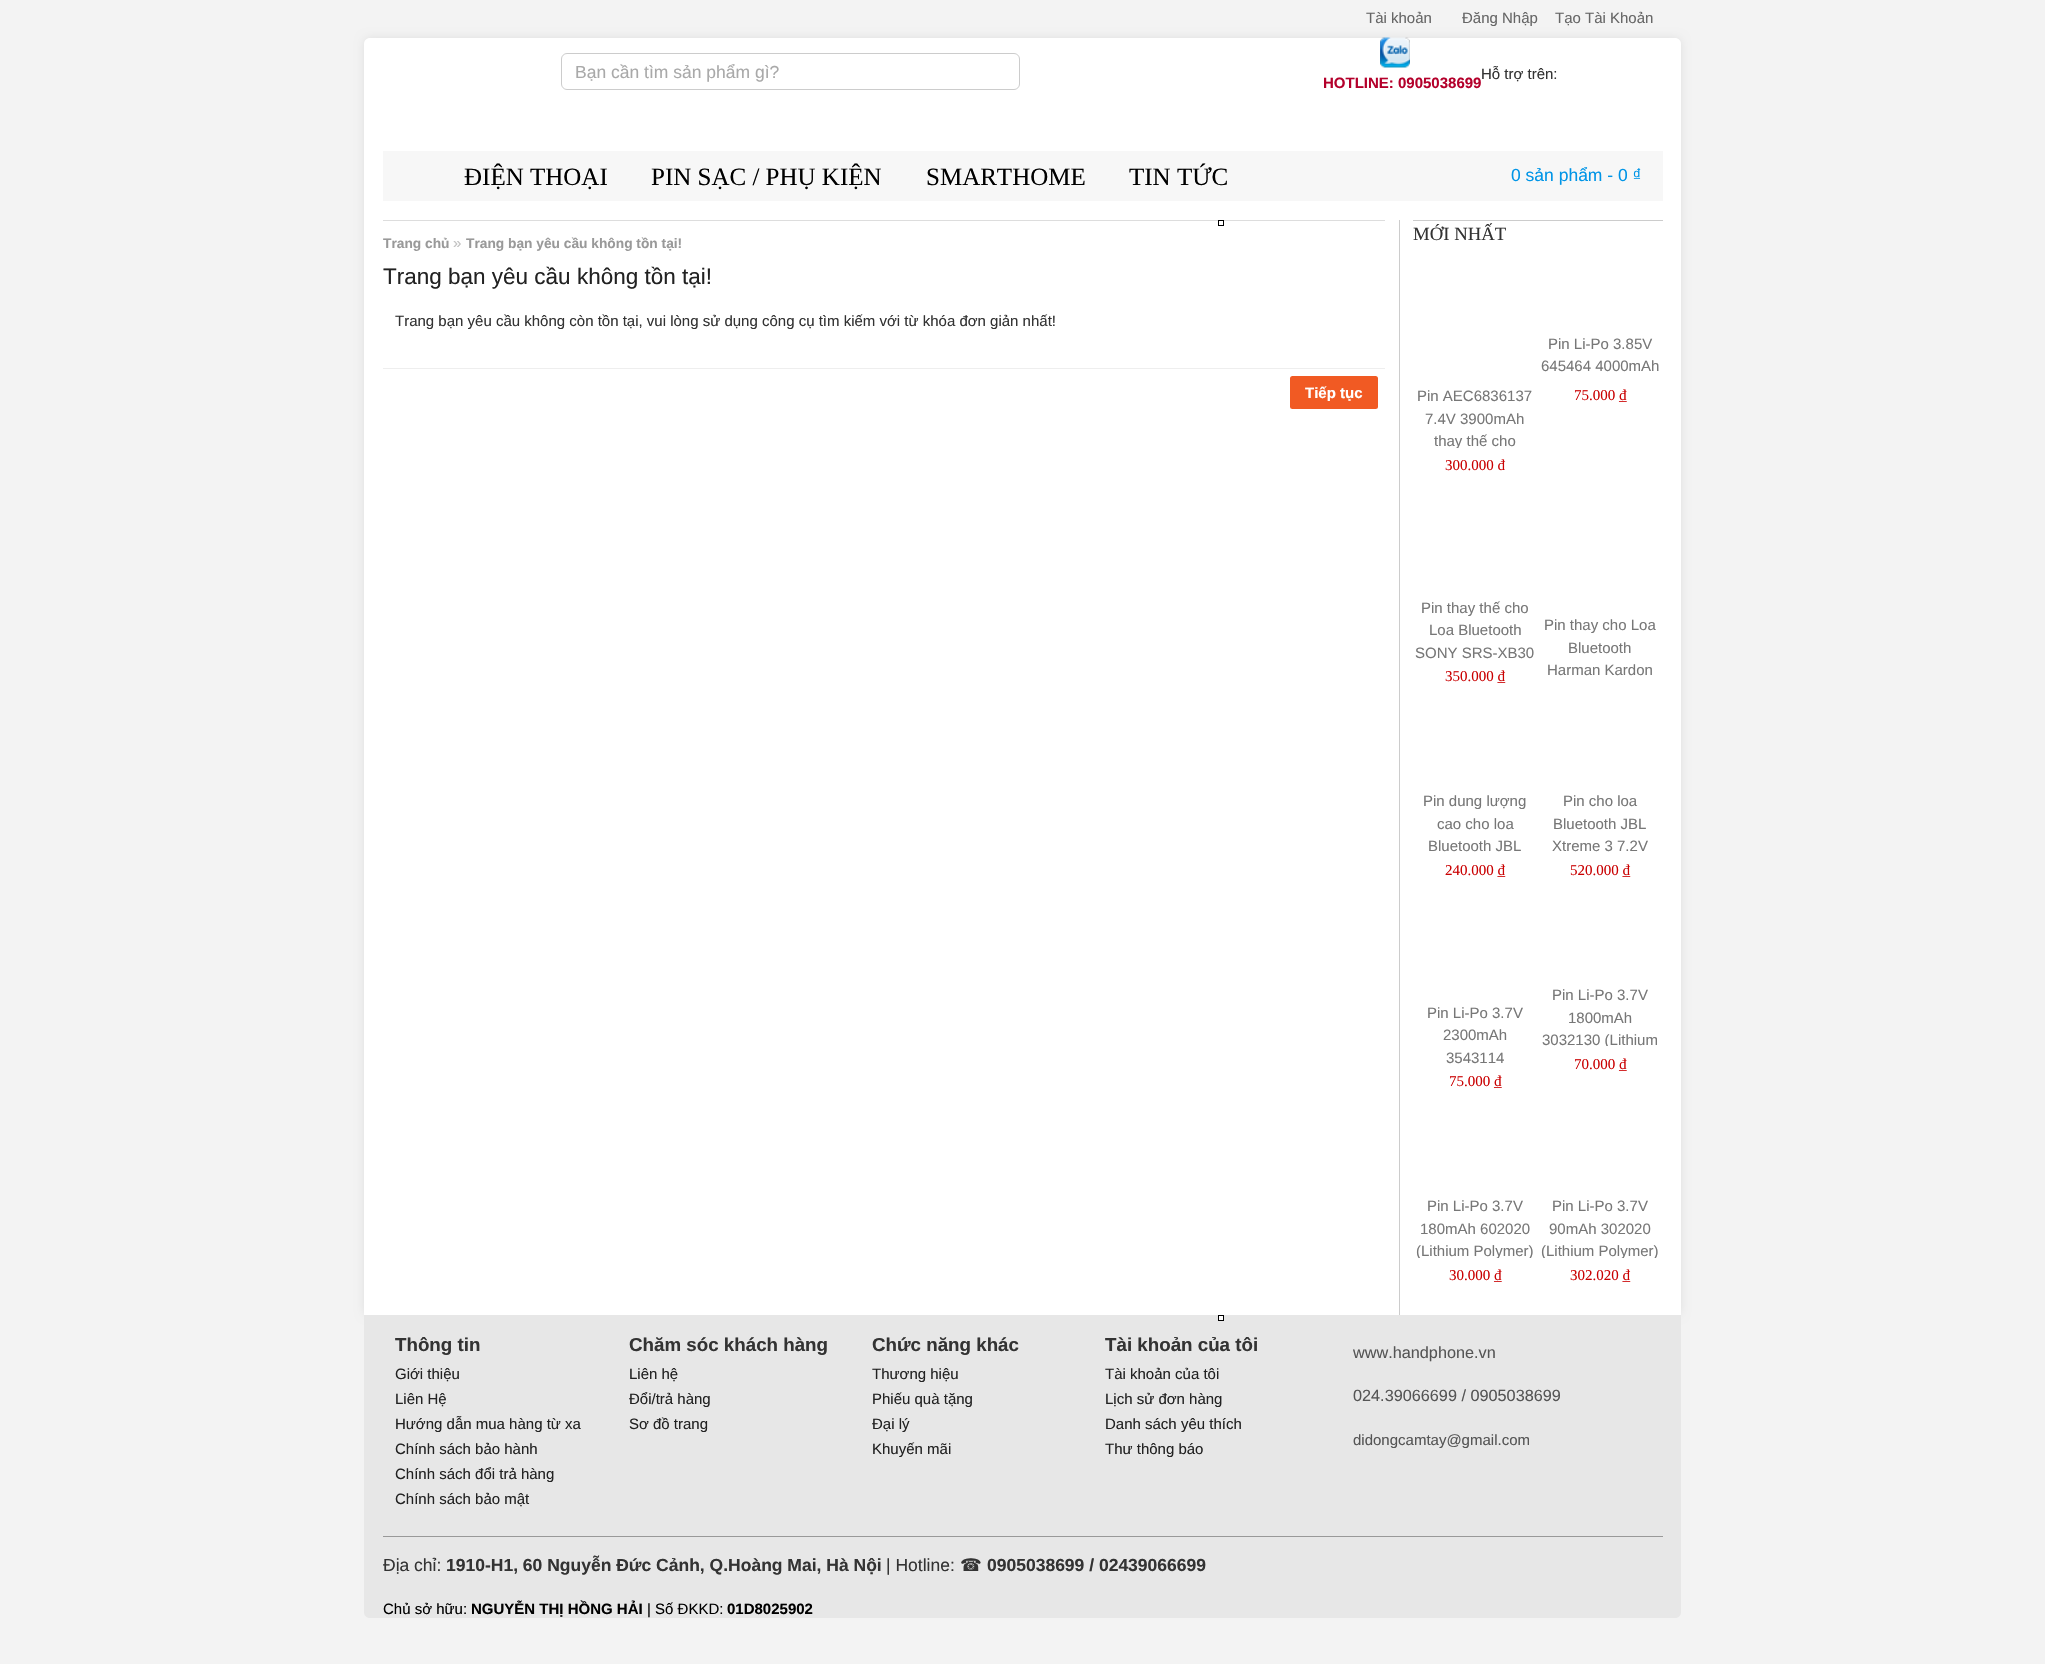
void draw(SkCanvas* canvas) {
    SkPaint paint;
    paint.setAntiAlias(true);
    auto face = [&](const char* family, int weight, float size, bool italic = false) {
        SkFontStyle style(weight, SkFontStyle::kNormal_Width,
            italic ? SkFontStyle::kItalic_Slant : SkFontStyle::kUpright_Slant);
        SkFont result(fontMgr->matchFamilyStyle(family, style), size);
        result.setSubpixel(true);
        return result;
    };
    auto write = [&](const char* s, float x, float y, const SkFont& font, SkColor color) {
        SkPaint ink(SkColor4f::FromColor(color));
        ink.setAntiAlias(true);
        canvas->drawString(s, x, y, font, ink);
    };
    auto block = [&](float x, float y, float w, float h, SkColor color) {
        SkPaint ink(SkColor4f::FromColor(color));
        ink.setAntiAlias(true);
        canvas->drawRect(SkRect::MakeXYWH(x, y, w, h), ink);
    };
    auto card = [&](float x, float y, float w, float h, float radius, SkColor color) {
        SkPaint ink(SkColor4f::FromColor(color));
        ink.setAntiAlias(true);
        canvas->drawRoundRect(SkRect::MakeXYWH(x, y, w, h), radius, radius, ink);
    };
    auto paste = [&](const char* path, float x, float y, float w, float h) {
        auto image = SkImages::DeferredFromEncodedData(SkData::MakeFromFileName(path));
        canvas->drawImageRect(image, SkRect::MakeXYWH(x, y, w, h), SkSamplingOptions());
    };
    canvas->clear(SkColorSetRGB(243, 243, 243));
    paint.setColor(SkColorSetARGB(20, 0, 0, 0));
    paint.setMaskFilter(SkMaskFilter::MakeBlur(kNormal_SkBlurStyle, 5));
    canvas->drawRoundRect(SkRect::MakeXYWH(364, 38, 1317, 1277), 6, 6, paint);
    paint.setMaskFilter(nullptr);
    paint.setColor(SK_ColorWHITE);
    canvas->drawPath(SkPathBuilder().moveTo(370, 38).lineTo(1675, 38).cubicTo(1678.5f, 38, 1681, 40.5f, 1681, 44).lineTo(1681, 1315).lineTo(364, 1315).lineTo(364, 44).cubicTo(364, 40.5f, 366.5f, 38, 370, 38).close().detach(), paint);
    auto kFont1 = face("Liberation Sans", 400, 15);
    write("Tài khoản", 1366, 23, kFont1, SkColorSetRGB(102, 102, 102));
    write("Đăng Nhập", 1462, 23, kFont1, SkColorSetRGB(102, 102, 102));
    write("Tạo Tài Khoản", 1555, 23, kFont1, SkColorSetRGB(102, 102, 102));
    paste("pic1.png", 1380, 37, 30, 31);
    paint.setStyle(SkPaint::kStroke_Style);
    paint.setStrokeWidth(1);
    paint.setColor(SkColorSetRGB(204, 204, 204));
    canvas->drawRoundRect(SkRect::MakeXYWH(561.5f, 53.5f, 458, 36), 5.5f, 5.5f, paint);
    auto kFont2 = face("Liberation Sans", 400, 17.5f);
    write("Bạn cần tìm sản phẩm gì?", 575, 78, kFont2, SkColorSetRGB(169, 169, 169));
    auto kFont3 = face("Liberation Sans", 700, 15);
    write("HOTLINE: 0905038699", 1323, 88, kFont3, SkColorSetRGB(180, 0, 43));
    write("Hỗ trợ trên:", 1481, 79, kFont1, SkColorSetRGB(51, 51, 51));
    block(383, 151, 1280, 50, SkColorSetRGB(247, 247, 247));
    write("0 sản phẩm - 0 ₫", 1511, 181, kFont2, SkColorSetRGB(0, 149, 231));
    auto kFont4 = face("Liberation Serif", 400, 25);
    write("ĐIỆN THOẠI", 464, 185, kFont4, SK_ColorBLACK);
    write("PIN SẠC / PHỤ KIỆN", 651, 185, kFont4, SK_ColorBLACK);
    write("SMARTHOME", 926, 185, kFont4, SK_ColorBLACK);
    write("TIN TỨC", 1129, 185, kFont4, SK_ColorBLACK);
    block(383, 220, 1002, 1, SkColorSetRGB(221, 221, 221));
    auto kFont5 = face("Liberation Sans", 700, 13.75f);
    write("Trang chủ", 383, 248, kFont5, SkColorSetRGB(153, 153, 153));
    write("»", 453, 248, kFont1, SkColorSetRGB(194, 194, 194));
    write("Trang bạn yêu cầu không tồn tại!", 466, 248, kFont5, SkColorSetRGB(153, 153, 153));
    auto kFont6 = face("Liberation Sans", 400, 22.5f);
    write("Trang bạn yêu cầu không tồn tại!", 383, 284, kFont6, SkColorSetRGB(34, 34, 34));
    write("Trang bạn yêu cầu không còn tồn tại, vui lòng sử dụng công cụ tìm kiếm với từ khóa đơn giản nhất!", 395, 326, kFont1, SkColorSetRGB(51, 51, 51));
    block(383, 368, 1002, 1, SkColorSetRGB(238, 238, 238));
    card(1290, 376, 88, 33, 2.5f, SkColorSetRGB(241, 90, 35));
    write("Tiếp tục", 1305, 398, kFont3, SK_ColorWHITE);
    block(1399, 220, 1, 1095, SkColorSetRGB(204, 204, 204));
    paint.setColor(SK_ColorBLACK);
    canvas->drawRect(SkRect::MakeXYWH(1218.5f, 220.5f, 5, 5), paint);
    block(1413, 220, 250, 1, SkColorSetRGB(204, 204, 204));
    auto kFont7 = face("Liberation Serif", 400, 18.75f);
    write("MỚI NHẤT", 1413, 240, kFont7, SkColorSetRGB(51, 51, 51));
    write("Pin Li-Po 3.85V", 1548, 349, kFont1, SkColorSetRGB(119, 119, 119));
    write("645464 4000mAh", 1541, 371, kFont1, SkColorSetRGB(119, 119, 119));
    auto kFont8 = face("Liberation Serif", 400, 15);
    write("75.000 ₫", 1574, 400, kFont8, SkColorSetRGB(202, 1, 2));
    write("Pin AEC6836137", 1417, 401, kFont1, SkColorSetRGB(119, 119, 119));
    write("7.4V 3900mAh", 1425, 424, kFont1, SkColorSetRGB(119, 119, 119));
    canvas->save();
    canvas->clipRect(SkRect::MakeXYWH(1415, 379, 120, 69));
    write("thay thế cho", 1434, 446, kFont1, SkColorSetRGB(119, 119, 119));
    canvas->restore();
    write("300.000 ₫", 1445, 470, kFont8, SkColorSetRGB(202, 1, 2));
    block(1497, 471, 9, 1, SK_ColorWHITE);
    write("Pin thay thế cho", 1421, 613, kFont1, SkColorSetRGB(119, 119, 119));
    write("Loa Bluetooth", 1429, 635, kFont1, SkColorSetRGB(119, 119, 119));
    write("SONY SRS-XB30", 1415, 658, kFont1, SkColorSetRGB(119, 119, 119));
    write("350.000 ₫", 1445, 681, kFont8, SkColorSetRGB(202, 1, 2));
    write("Pin thay cho Loa", 1544, 630, kFont1, SkColorSetRGB(119, 119, 119));
    write("Bluetooth", 1568, 653, kFont1, SkColorSetRGB(119, 119, 119));
    write("Harman Kardon", 1547, 675, kFont1, SkColorSetRGB(119, 119, 119));
    write("Pin dung lượng", 1423, 806, kFont1, SkColorSetRGB(119, 119, 119));
    write("cao cho loa", 1437, 829, kFont1, SkColorSetRGB(119, 119, 119));
    write("Bluetooth JBL", 1428, 851, kFont1, SkColorSetRGB(119, 119, 119));
    write("240.000 ₫", 1445, 875, kFont8, SkColorSetRGB(202, 1, 2));
    write("Pin cho loa", 1563, 806, kFont1, SkColorSetRGB(119, 119, 119));
    write("Bluetooth JBL", 1553, 829, kFont1, SkColorSetRGB(119, 119, 119));
    write("Xtreme 3 7.2V", 1552, 851, kFont1, SkColorSetRGB(119, 119, 119));
    write("520.000 ₫", 1570, 875, kFont8, SkColorSetRGB(202, 1, 2));
    write("Pin Li-Po 3.7V", 1427, 1018, kFont1, SkColorSetRGB(119, 119, 119));
    write("2300mAh", 1443, 1040, kFont1, SkColorSetRGB(119, 119, 119));
    write("3543114", 1446, 1063, kFont1, SkColorSetRGB(119, 119, 119));
    write("75.000 ₫", 1449, 1086, kFont8, SkColorSetRGB(202, 1, 2));
    write("Pin Li-Po 3.7V", 1552, 1000, kFont1, SkColorSetRGB(119, 119, 119));
    write("1800mAh", 1568, 1023, kFont1, SkColorSetRGB(119, 119, 119));
    canvas->save();
    canvas->clipRect(SkRect::MakeXYWH(1540, 978, 120, 68));
    write("3032130 (Lithium", 1542, 1045, kFont1, SkColorSetRGB(119, 119, 119));
    canvas->restore();
    write("70.000 ₫", 1574, 1069, kFont8, SkColorSetRGB(202, 1, 2));
    write("Pin Li-Po 3.7V", 1427, 1211, kFont1, SkColorSetRGB(119, 119, 119));
    write("180mAh 602020", 1420, 1234, kFont1, SkColorSetRGB(119, 119, 119));
    canvas->save();
    canvas->clipRect(SkRect::MakeXYWH(1415, 1189, 120, 69));
    write("(Lithium Polymer)", 1416, 1256, kFont1, SkColorSetRGB(119, 119, 119));
    canvas->restore();
    write("30.000 ₫", 1449, 1280, kFont8, SkColorSetRGB(202, 1, 2));
    write("Pin Li-Po 3.7V", 1552, 1211, kFont1, SkColorSetRGB(119, 119, 119));
    write("90mAh 302020", 1549, 1234, kFont1, SkColorSetRGB(119, 119, 119));
    canvas->save();
    canvas->clipRect(SkRect::MakeXYWH(1540, 1189, 120, 69));
    write("(Lithium Polymer)", 1541, 1256, kFont1, SkColorSetRGB(119, 119, 119));
    canvas->restore();
    write("302.020 ₫", 1570, 1280, kFont8, SkColorSetRGB(202, 1, 2));
    paint.setStyle(SkPaint::kFill_Style);
    paint.setColor(SkColorSetRGB(231, 231, 231));
    canvas->drawPath(SkPathBuilder().moveTo(364, 1315).lineTo(1681, 1315).lineTo(1681, 1612).cubicTo(1681, 1615.5f, 1678.5f, 1618, 1675, 1618).lineTo(370, 1618).cubicTo(366.5f, 1618, 364, 1615.5f, 364, 1612).close().detach(), paint);
    paint.setColor(SK_ColorWHITE);
    canvas->drawRect(SkRect::MakeXYWH(1218.5f, 1315.5f, 5, 5), paint);
    paint.setStyle(SkPaint::kStroke_Style);
    paint.setColor(SK_ColorBLACK);
    canvas->drawRect(SkRect::MakeXYWH(1218.5f, 1315.5f, 5, 5), paint);
    auto kFont9 = face("Liberation Sans", 700, 18.75f);
    write("Thông tin", 395, 1351, kFont9, SkColorSetRGB(51, 51, 51));
    write("Giới thiệu", 395, 1379, kFont1, SkColorSetRGB(34, 34, 34));
    write("Liên Hệ", 395, 1404, kFont1, SkColorSetRGB(34, 34, 34));
    write("Hướng dẫn mua hàng từ xa", 395, 1429, kFont1, SkColorSetRGB(34, 34, 34));
    write("Chính sách bảo hành", 395, 1454, kFont1, SkColorSetRGB(34, 34, 34));
    write("Chính sách đổi trả hàng", 395, 1479, kFont1, SkColorSetRGB(34, 34, 34));
    write("Chính sách bảo mật", 395, 1504, kFont1, SkColorSetRGB(34, 34, 34));
    write("Chăm sóc khách hàng", 629, 1351, kFont9, SkColorSetRGB(51, 51, 51));
    write("Liên hệ", 629, 1379, kFont1, SkColorSetRGB(34, 34, 34));
    write("Đổi/trả hàng", 629, 1404, kFont1, SkColorSetRGB(34, 34, 34));
    write("Sơ đồ trang", 629, 1429, kFont1, SkColorSetRGB(34, 34, 34));
    write("Chức năng khác", 872, 1351, kFont9, SkColorSetRGB(51, 51, 51));
    write("Thương hiệu", 872, 1379, kFont1, SkColorSetRGB(34, 34, 34));
    write("Phiếu quà tặng", 872, 1404, kFont1, SkColorSetRGB(34, 34, 34));
    write("Đại lý", 872, 1429, kFont1, SkColorSetRGB(34, 34, 34));
    write("Khuyến mãi", 872, 1454, kFont1, SkColorSetRGB(34, 34, 34));
    write("Tài khoản của tôi", 1105, 1351, kFont9, SkColorSetRGB(51, 51, 51));
    write("Tài khoản của tôi", 1105, 1379, kFont1, SkColorSetRGB(34, 34, 34));
    write("Lịch sử đơn hàng", 1105, 1404, kFont1, SkColorSetRGB(34, 34, 34));
    write("Danh sách yêu thích", 1105, 1429, kFont1, SkColorSetRGB(34, 34, 34));
    write("Thư thông báo", 1105, 1454, kFont1, SkColorSetRGB(34, 34, 34));
    auto kFont10 = face("Liberation Sans", 400, 16.25f);
    write("www.handphone.vn", 1353, 1358, kFont10, SkColorSetRGB(85, 85, 85));
    write("024.39066699 / 0905038699", 1353, 1401, kFont10, SkColorSetRGB(85, 85, 85));
    write("didongcamtay@gmail.com", 1353, 1445, kFont1, SkColorSetRGB(85, 85, 85));
    block(383, 1536, 1280, 1, SkColorSetRGB(153, 153, 153));
    write("Địa chỉ:", 383, 1571, kFont2, SkColorSetRGB(51, 51, 51));
    auto kFont11 = face("Liberation Sans", 700, 17.5f);
    write("1910-H1, 60 Nguyễn Đức Cảnh, Q.Hoàng Mai, Hà Nội", 446, 1571, kFont11, SkColorSetRGB(51, 51, 51));
    write("| Hotline:", 886, 1571, kFont2, SkColorSetRGB(51, 51, 51));
    auto kFont12 = face("DejaVu Sans", 400, 17.5f);
    write("☎", 960, 1571, kFont12, SkColorSetRGB(51, 51, 51));
    write("0905038699 / 02439066699", 987, 1571, kFont11, SkColorSetRGB(51, 51, 51));
    write("Chủ sở hữu:", 383, 1614, kFont1, SK_ColorBLACK);
    write("NGUYỄN THỊ HỒNG HẢI", 471, 1614, kFont3, SK_ColorBLACK);
    write("| Số ĐKKD:", 647, 1614, kFont1, SK_ColorBLACK);
    write("01D8025902", 727, 1614, kFont3, SK_ColorBLACK);
}
